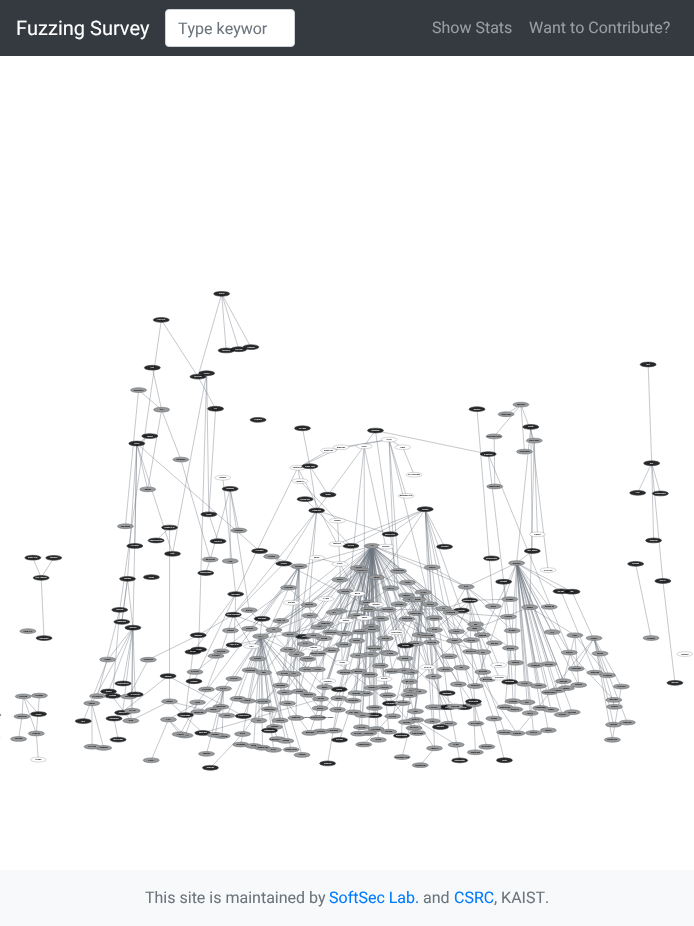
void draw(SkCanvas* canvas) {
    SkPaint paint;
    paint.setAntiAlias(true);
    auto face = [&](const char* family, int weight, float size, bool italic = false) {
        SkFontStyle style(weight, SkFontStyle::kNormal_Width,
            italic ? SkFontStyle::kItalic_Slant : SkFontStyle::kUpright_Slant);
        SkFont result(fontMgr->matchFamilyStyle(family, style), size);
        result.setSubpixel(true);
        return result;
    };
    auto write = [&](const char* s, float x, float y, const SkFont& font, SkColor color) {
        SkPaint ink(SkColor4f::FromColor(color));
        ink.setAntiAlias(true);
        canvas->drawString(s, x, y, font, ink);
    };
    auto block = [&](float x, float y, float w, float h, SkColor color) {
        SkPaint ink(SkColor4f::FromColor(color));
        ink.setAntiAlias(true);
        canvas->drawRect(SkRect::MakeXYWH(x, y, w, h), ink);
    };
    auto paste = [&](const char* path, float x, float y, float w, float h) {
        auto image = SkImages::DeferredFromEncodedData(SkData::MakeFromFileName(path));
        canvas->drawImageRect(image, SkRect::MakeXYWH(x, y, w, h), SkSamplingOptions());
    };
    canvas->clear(SK_ColorWHITE);
    block(0, 0, 694, 56, SkColorSetRGB(52, 58, 64));
    auto kFont1 = face("Roboto", 400, 20);
    write("Fuzzing Survey", 16, 35, kFont1, SK_ColorWHITE);
    paint.setColor(SK_ColorWHITE);
    canvas->drawRoundRect(SkRect::MakeXYWH(165.5f, 9.5f, 129, 37), 3.5f, 3.5f, paint);
    paint.setStyle(SkPaint::kStroke_Style);
    paint.setStrokeWidth(1);
    paint.setColor(SkColorSetRGB(206, 212, 218));
    canvas->drawRoundRect(SkRect::MakeXYWH(165.5f, 9.5f, 129, 37), 3.5f, 3.5f, paint);
    auto kFont2 = face("Roboto", 400, 16);
    write("Type keywor", 178, 34, kFont2, SkColorSetRGB(108, 117, 125));
    write("Show Stats", 432, 33, kFont2, SkColorSetRGB(154, 157, 160));
    write("Want to Contribute?", 529, 33, kFont2, SkColorSetRGB(154, 157, 160));
    paste("pic1.png", 0, 290, 693, 481);
    block(0, 870, 694, 56, SkColorSetRGB(248, 249, 250));
    write("This site is maintained by", 145, 903, kFont2, SkColorSetRGB(108, 117, 125));
    write("SoftSec Lab.", 329, 903, kFont2, SkColorSetRGB(0, 123, 255));
    write("and", 423, 903, kFont2, SkColorSetRGB(108, 117, 125));
    write("CSRC", 454, 903, kFont2, SkColorSetRGB(0, 123, 255));
    write(", KAIST.", 494, 903, kFont2, SkColorSetRGB(108, 117, 125));
}
